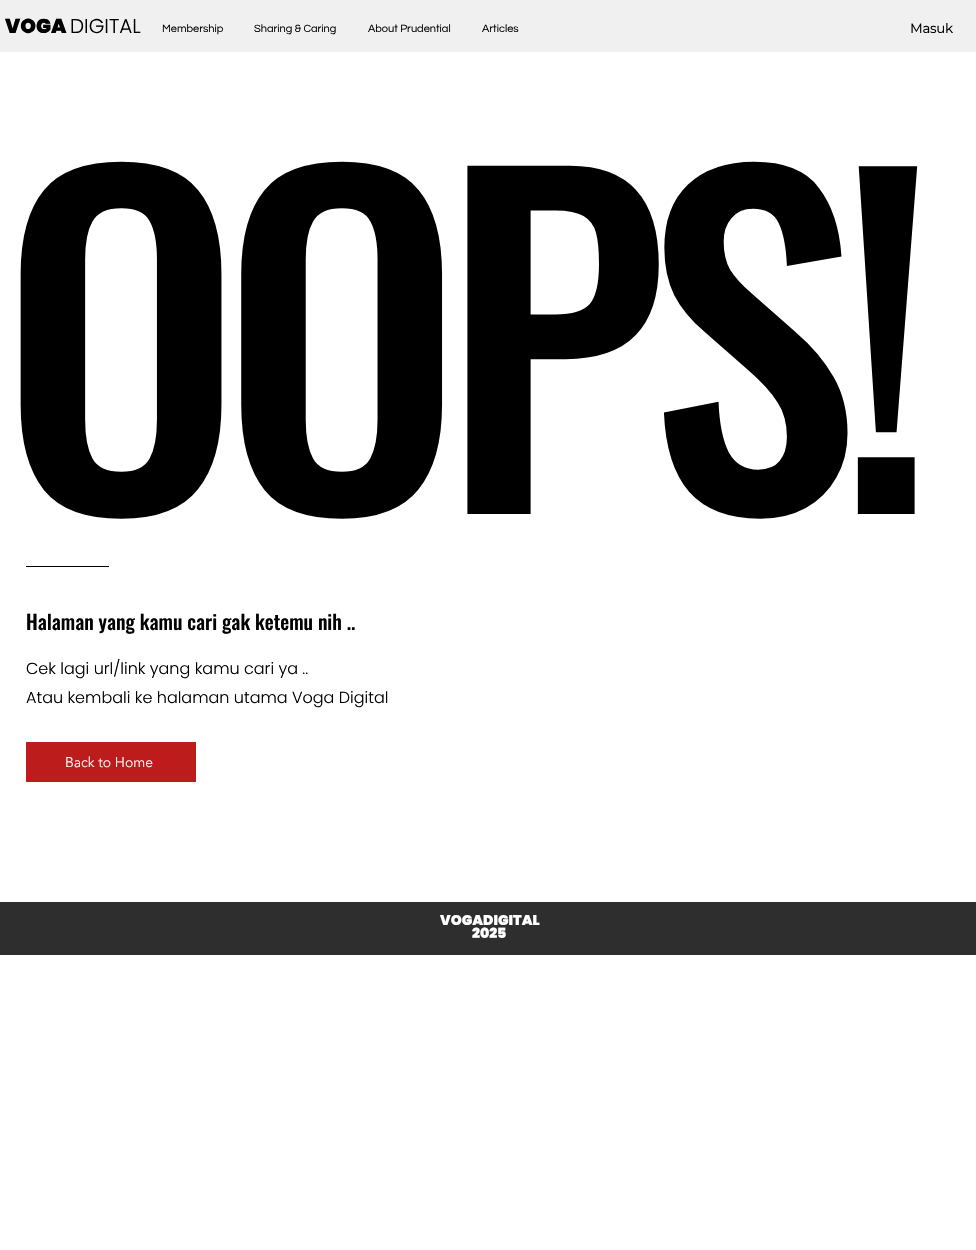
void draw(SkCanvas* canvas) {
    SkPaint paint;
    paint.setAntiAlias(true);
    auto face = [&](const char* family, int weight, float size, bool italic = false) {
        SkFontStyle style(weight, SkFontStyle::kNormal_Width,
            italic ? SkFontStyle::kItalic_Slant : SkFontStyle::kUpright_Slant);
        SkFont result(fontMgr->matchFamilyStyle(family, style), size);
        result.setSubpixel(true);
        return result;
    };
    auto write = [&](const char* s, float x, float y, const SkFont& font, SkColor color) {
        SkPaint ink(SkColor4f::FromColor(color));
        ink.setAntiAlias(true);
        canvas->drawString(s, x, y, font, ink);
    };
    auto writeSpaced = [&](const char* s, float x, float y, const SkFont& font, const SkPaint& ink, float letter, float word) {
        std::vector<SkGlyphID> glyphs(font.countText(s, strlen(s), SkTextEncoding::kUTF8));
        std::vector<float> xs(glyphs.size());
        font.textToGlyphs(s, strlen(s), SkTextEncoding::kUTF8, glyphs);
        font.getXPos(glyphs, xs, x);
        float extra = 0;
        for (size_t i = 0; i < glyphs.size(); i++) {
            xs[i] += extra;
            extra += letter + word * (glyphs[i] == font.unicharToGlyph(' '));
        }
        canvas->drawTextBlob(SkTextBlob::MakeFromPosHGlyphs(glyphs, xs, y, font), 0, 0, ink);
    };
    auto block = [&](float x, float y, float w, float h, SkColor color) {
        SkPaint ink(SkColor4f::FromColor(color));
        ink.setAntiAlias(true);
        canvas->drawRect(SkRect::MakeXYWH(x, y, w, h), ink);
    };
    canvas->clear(SK_ColorWHITE);
    block(0, 0, 976, 52, SkColorSetRGB(240, 240, 240));
    auto kFont1 = face("Poppins", 900, 20);
    write("VOGA", 5, 33, kFont1, SK_ColorBLACK);
    auto kFont2 = face("Poppins", 300, 20);
    write("DIGITAL", 70, 33, kFont2, SK_ColorBLACK);
    auto kFont3 = face("Questrial", 400, 11);
    write("Membership", 162, 32, kFont3, SK_ColorBLACK);
    write("Sharing & Caring", 254, 32, kFont3, SK_ColorBLACK);
    write("About Prudential", 368, 32, kFont3, SK_ColorBLACK);
    write("Articles", 482, 32, kFont3, SK_ColorBLACK);
    auto kFont4 = face("Montserrat", 700, 13);
    write("Masuk", 910, 33, kFont4, SK_ColorBLACK);
    auto kFont5 = face("Oswald", 500, 430);
    paint.setColor(SK_ColorBLACK);
    writeSpaced("OOPS!", 0, 514, kFont5, paint, -21.5f, 0);
    block(26, 566, 83, 1, SK_ColorBLACK);
    auto kFont6 = face("Oswald", 500, 20);
    write("Halaman yang kamu cari gak ketemu nih ..", 26, 630, kFont6, SK_ColorBLACK);
    auto kFont7 = face("Poppins", 300, 16);
    write("Cek lagi url/link yang kamu cari ya ..", 26, 674, kFont7, SK_ColorBLACK);
    write("Atau kembali ke halaman utama Voga Digital", 26, 703, kFont7, SK_ColorBLACK);
    block(26, 742, 170, 40, SkColorSetRGB(188, 28, 28));
    auto kFont8 = face("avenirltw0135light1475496", 300, 14);
    write("Back to Home", 65, 767, kFont8, SK_ColorWHITE);
    block(0, 902, 976, 53, SkColorSetRGB(47, 46, 46));
    auto kFont9 = face("Poppins", 900, 14);
    write("VOGADIGITAL", 440, 925, kFont9, SK_ColorWHITE);
    write("2025", 472, 938, kFont9, SK_ColorWHITE);
}
